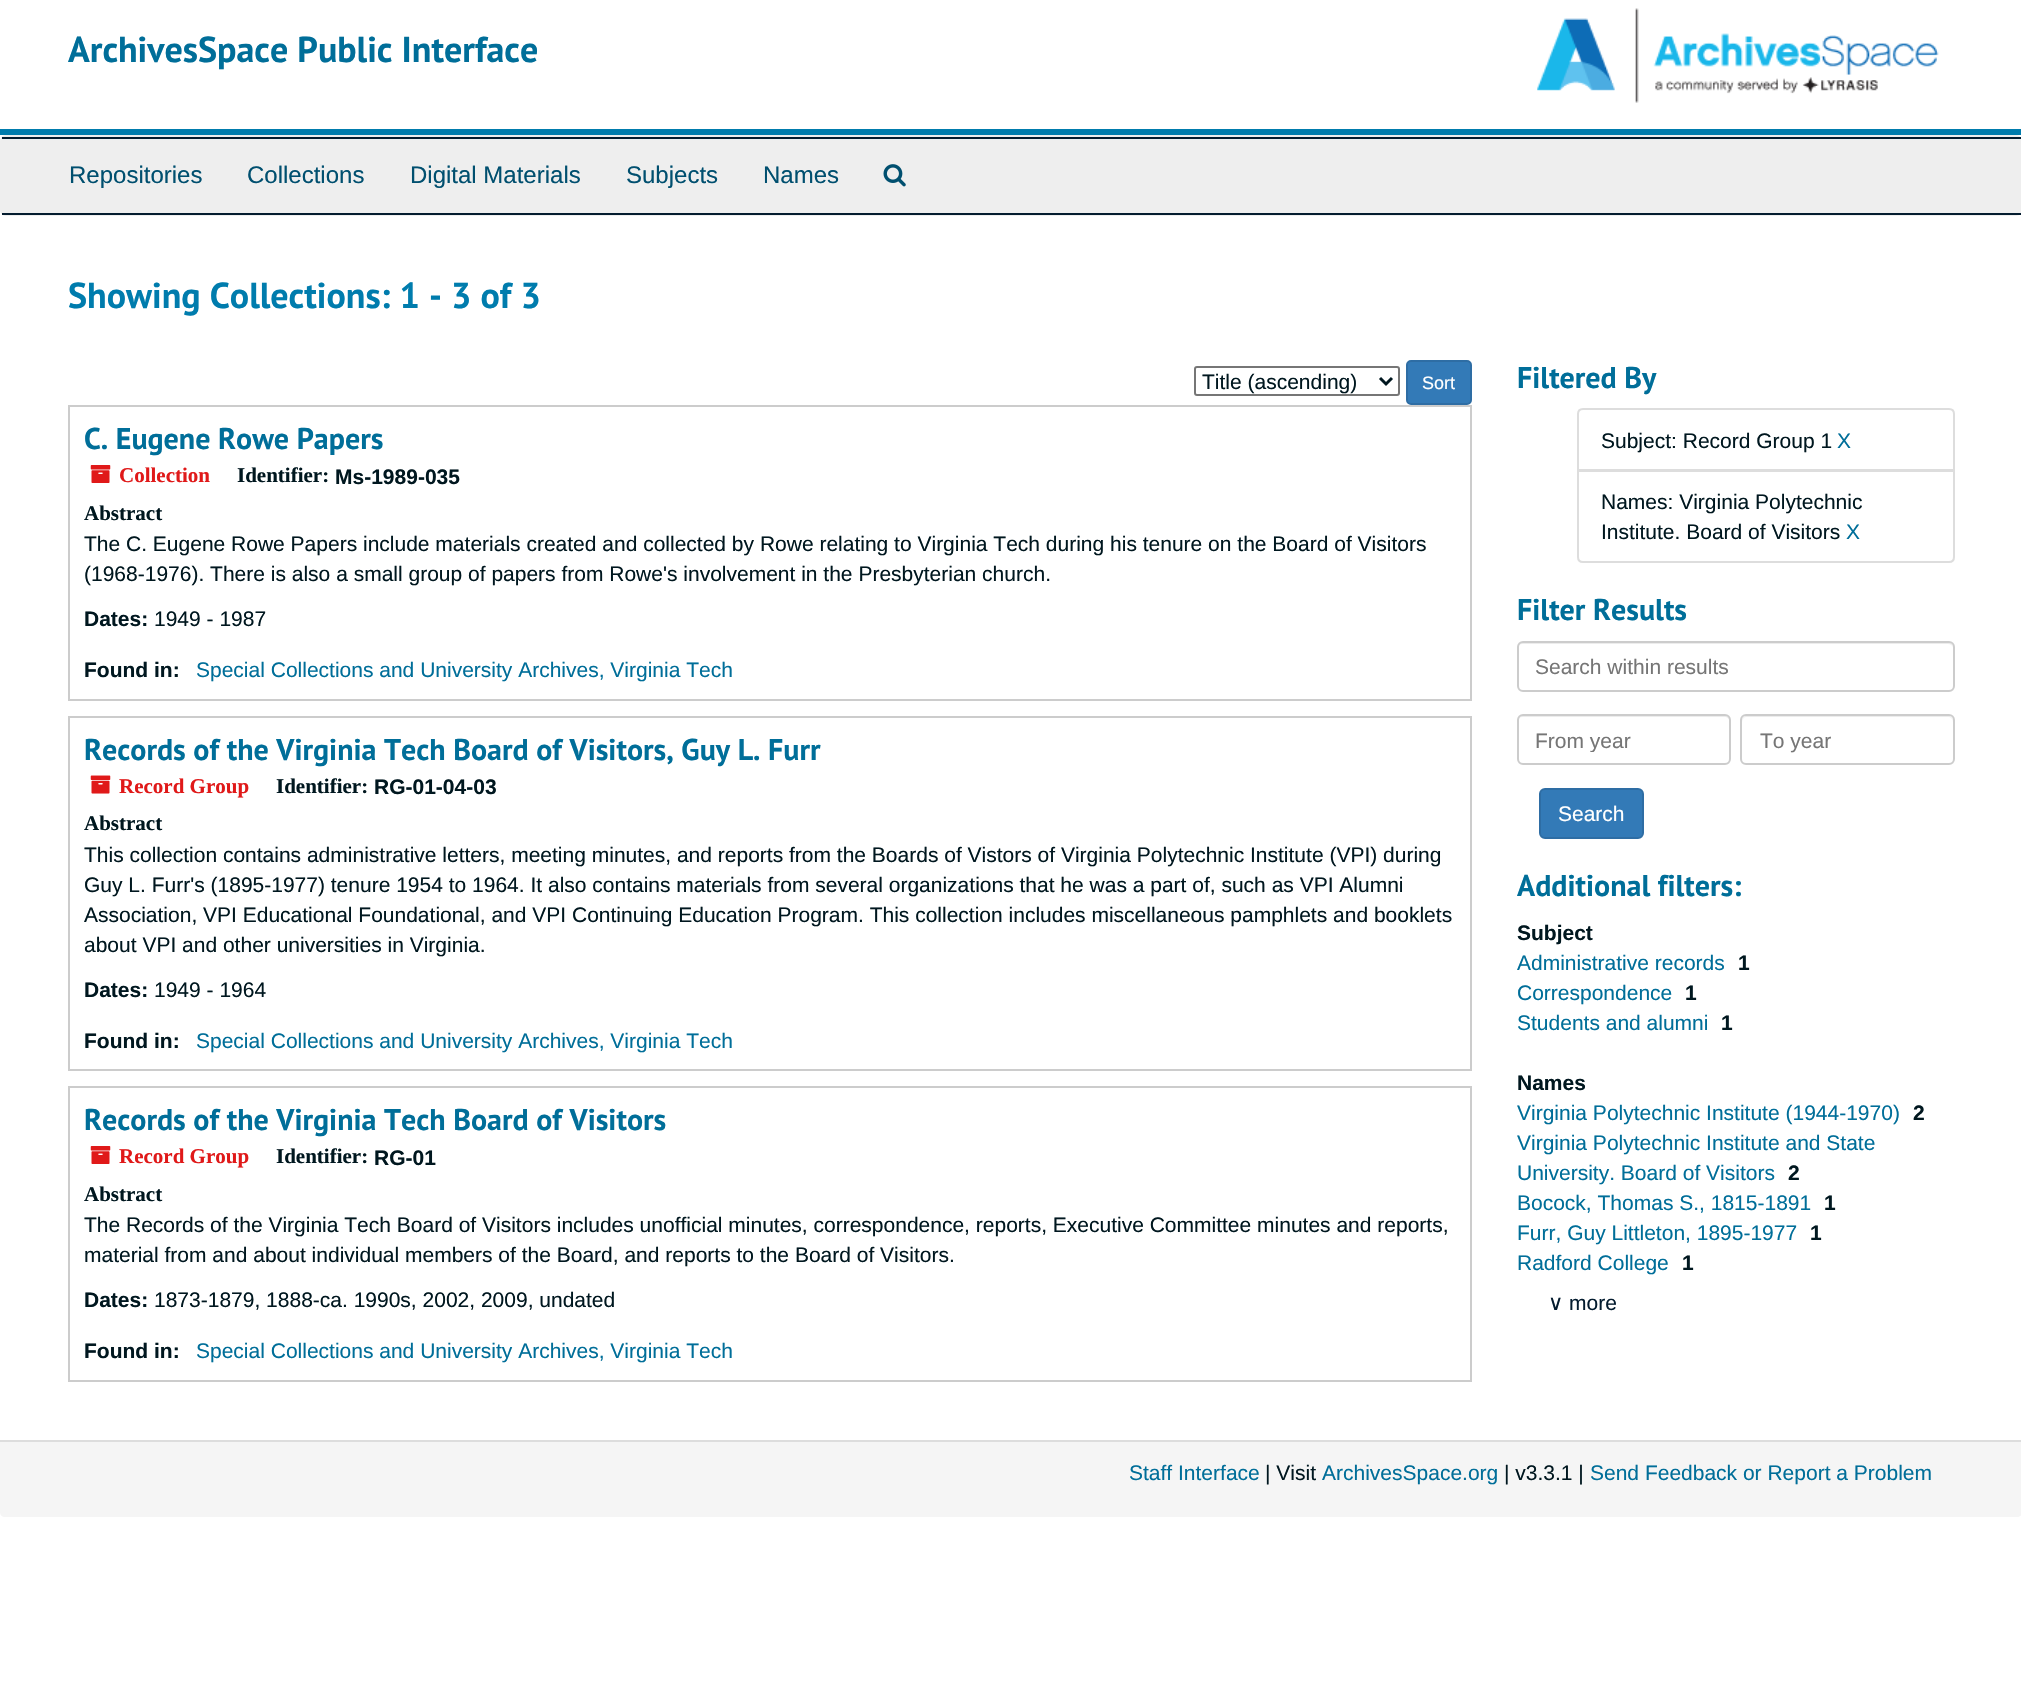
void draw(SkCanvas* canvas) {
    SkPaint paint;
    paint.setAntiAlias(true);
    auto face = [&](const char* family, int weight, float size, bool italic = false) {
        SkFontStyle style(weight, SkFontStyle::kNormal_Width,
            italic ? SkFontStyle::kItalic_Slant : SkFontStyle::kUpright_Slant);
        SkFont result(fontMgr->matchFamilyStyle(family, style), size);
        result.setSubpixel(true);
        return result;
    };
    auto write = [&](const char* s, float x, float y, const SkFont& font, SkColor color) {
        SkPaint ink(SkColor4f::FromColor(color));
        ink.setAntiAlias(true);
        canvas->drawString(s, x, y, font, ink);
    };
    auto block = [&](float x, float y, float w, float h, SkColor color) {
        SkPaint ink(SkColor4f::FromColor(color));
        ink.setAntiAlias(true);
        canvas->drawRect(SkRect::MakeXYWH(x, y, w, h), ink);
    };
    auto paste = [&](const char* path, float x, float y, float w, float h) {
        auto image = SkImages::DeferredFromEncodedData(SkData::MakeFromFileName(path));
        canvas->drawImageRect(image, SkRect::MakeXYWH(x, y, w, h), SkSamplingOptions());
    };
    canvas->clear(SK_ColorWHITE);
    block(0, 129, 2021, 6, SkColorSetRGB(0, 124, 173));
    auto kFont1 = face("PT Sans", 700, 36);
    write("ArchivesSpace Public Interface", 68, 62, kFont1, SkColorSetRGB(0, 110, 153));
    paste("pic1.png", 1537, 8, 402, 95);
    paint.setStyle(SkPaint::kStroke_Style);
    paint.setStrokeWidth(2);
    paint.setColor(SkColorSetRGB(238, 238, 238));
    canvas->drawRoundRect(SkRect::MakeXYWH(1, 136, 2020, 79), 5, 5, paint);
    block(2, 139, 2018, 74, SkColorSetRGB(238, 238, 238));
    block(2, 137, 2019, 2, SkColorSetRGB(4, 28, 47));
    block(2, 213, 2019, 2, SkColorSetRGB(4, 28, 47));
    auto kFont2 = face("Liberation Sans", 400, 24);
    write("Repositories", 69, 183, kFont2, SkColorSetRGB(0, 79, 111));
    write("Collections", 247, 183, kFont2, SkColorSetRGB(0, 79, 111));
    write("Digital Materials", 410, 183, kFont2, SkColorSetRGB(0, 79, 111));
    write("Subjects", 626, 183, kFont2, SkColorSetRGB(0, 79, 111));
    write("Names", 763, 183, kFont2, SkColorSetRGB(0, 79, 111));
    paste("pic2.png", 883, 164, 23, 23);
    write("Showing Collections: 1 - 3 of 3", 68, 308, kFont1, SkColorSetRGB(0, 124, 173));
    paint.setColor(SkColorSetRGB(118, 118, 118));
    canvas->drawRoundRect(SkRect::MakeXYWH(1195, 367, 204, 28), 2, 2, paint);
    paint.setStrokeWidth(3);
    paint.setColor(SkColorSetRGB(0, 23, 31));
    canvas->drawPath(SkPathBuilder().moveTo(1380, 378).lineTo(1386, 384).lineTo(1392, 378).detach(), paint);
    auto kFont3 = face("Liberation Sans", 400, 21);
    write("Title (ascending)", 1202, 389, kFont3, SkColorSetRGB(0, 23, 31));
    paint.setStyle(SkPaint::kFill_Style);
    paint.setColor(SkColorSetRGB(51, 122, 183));
    canvas->drawRoundRect(SkRect::MakeXYWH(1407, 361, 64, 43), 4, 4, paint);
    paint.setStyle(SkPaint::kStroke_Style);
    paint.setStrokeWidth(2);
    paint.setColor(SkColorSetRGB(46, 109, 164));
    canvas->drawRoundRect(SkRect::MakeXYWH(1407, 361, 64, 43), 4, 4, paint);
    auto kFont4 = face("Liberation Sans", 400, 18);
    write("Sort", 1422, 389, kFont4, SK_ColorWHITE);
    paint.setColor(SkColorSetRGB(204, 204, 204));
    canvas->drawRect(SkRect::MakeXYWH(69, 406, 1402, 294), paint);
    auto kFont5 = face("PT Sans", 700, 30);
    write("C. Eugene Rowe Papers", 84, 449, kFont5, SkColorSetRGB(0, 110, 153));
    paste("pic3.png", 90, 465, 21, 18);
    auto kFont6 = face("Liberation Serif", 700, 21);
    write("Collection", 119, 482, kFont6, SkColorSetRGB(224, 25, 25));
    write("Identifier:", 237, 482, kFont6, SkColorSetRGB(0, 23, 31));
    auto kFont7 = face("Liberation Sans", 700, 21);
    write("Ms-1989-035", 335, 484, kFont7, SkColorSetRGB(0, 23, 31));
    write("Abstract", 84, 520, kFont6, SkColorSetRGB(0, 23, 31));
    write("The C. Eugene Rowe Papers include materials created and collected by Rowe relating to Virginia Tech during his tenure on the Board of Visitors", 84, 551, kFont3, SkColorSetRGB(0, 23, 31));
    write("(1968-1976). There is also a small group of papers from Rowe's involvement in the Presbyterian church.", 84, 581, kFont3, SkColorSetRGB(0, 23, 31));
    write("Dates:", 84, 626, kFont7, SkColorSetRGB(0, 23, 31));
    write("1949 - 1987", 154, 626, kFont3, SkColorSetRGB(0, 23, 31));
    write("Found in:", 84, 677, kFont7, SkColorSetRGB(0, 23, 31));
    write("Special Collections and University Archives, Virginia Tech", 196, 677, kFont3, SkColorSetRGB(0, 110, 153));
    canvas->drawRect(SkRect::MakeXYWH(69, 717, 1402, 353), paint);
    write("Records of the Virginia Tech Board of Visitors, Guy L. Furr", 84, 760, kFont5, SkColorSetRGB(0, 110, 153));
    paste("pic4.png", 90, 775, 21, 19);
    write("Record Group", 119, 793, kFont6, SkColorSetRGB(224, 25, 25));
    write("Identifier:", 276, 793, kFont6, SkColorSetRGB(0, 23, 31));
    write("RG-01-04-03", 374, 794, kFont7, SkColorSetRGB(0, 23, 31));
    write("Abstract", 84, 830, kFont6, SkColorSetRGB(0, 23, 31));
    write("This collection contains administrative letters, meeting minutes, and reports from the Boards of Vistors of Virginia Polytechnic Institute (VPI) during", 84, 862, kFont3, SkColorSetRGB(0, 23, 31));
    write("Guy L. Furr's (1895-1977) tenure 1954 to 1964. It also contains materials from several organizations that he was a part of, such as VPI Alumni", 84, 892, kFont3, SkColorSetRGB(0, 23, 31));
    write("Association, VPI Educational Foundational, and VPI Continuing Education Program. This collection includes miscellaneous pamphlets and booklets", 84, 922, kFont3, SkColorSetRGB(0, 23, 31));
    write("about VPI and other universities in Virginia.", 84, 952, kFont3, SkColorSetRGB(0, 23, 31));
    write("Dates:", 84, 997, kFont7, SkColorSetRGB(0, 23, 31));
    write("1949 - 1964", 154, 997, kFont3, SkColorSetRGB(0, 23, 31));
    write("Found in:", 84, 1048, kFont7, SkColorSetRGB(0, 23, 31));
    write("Special Collections and University Archives, Virginia Tech", 196, 1048, kFont3, SkColorSetRGB(0, 110, 153));
    canvas->drawRect(SkRect::MakeXYWH(69, 1087, 1402, 294), paint);
    write("Records of the Virginia Tech Board of Visitors", 84, 1130, kFont5, SkColorSetRGB(0, 110, 153));
    paste("pic3.png", 90, 1146, 21, 18);
    write("Record Group", 119, 1163, kFont6, SkColorSetRGB(224, 25, 25));
    write("Identifier:", 276, 1163, kFont6, SkColorSetRGB(0, 23, 31));
    write("RG-01", 374, 1165, kFont7, SkColorSetRGB(0, 23, 31));
    write("Abstract", 84, 1201, kFont6, SkColorSetRGB(0, 23, 31));
    write("The Records of the Virginia Tech Board of Visitors includes unofficial minutes, correspondence, reports, Executive Committee minutes and reports,", 84, 1232, kFont3, SkColorSetRGB(0, 23, 31));
    write("material from and about individual members of the Board, and reports to the Board of Visitors.", 84, 1262, kFont3, SkColorSetRGB(0, 23, 31));
    write("Dates:", 84, 1307, kFont7, SkColorSetRGB(0, 23, 31));
    write("1873-1879, 1888-ca. 1990s, 2002, 2009, undated", 154, 1307, kFont3, SkColorSetRGB(0, 23, 31));
    write("Found in:", 84, 1358, kFont7, SkColorSetRGB(0, 23, 31));
    write("Special Collections and University Archives, Virginia Tech", 196, 1358, kFont3, SkColorSetRGB(0, 110, 153));
    write("Filtered By", 1517, 388, kFont5, SkColorSetRGB(0, 110, 153));
    paint.setColor(SkColorSetRGB(221, 221, 221));
    canvas->drawPath(SkPathBuilder().moveTo(1583, 409).lineTo(1949, 409).cubicTo(1952, 409, 1954, 411, 1954, 414).lineTo(1954, 470).lineTo(1578, 470).lineTo(1578, 414).cubicTo(1578, 411, 1580, 409, 1583, 409).close().detach(), paint);
    write("Subject: Record Group 1", 1601, 448, kFont3, SkColorSetRGB(0, 23, 31));
    write("X", 1837, 448, kFont3, SkColorSetRGB(0, 110, 153));
    paint.setStyle(SkPaint::kFill_Style);
    paint.setColor(SK_ColorWHITE);
    canvas->drawPath(SkPathBuilder().moveTo(1578, 471).lineTo(1954, 471).lineTo(1954, 557).cubicTo(1954, 560, 1952, 562, 1949, 562).lineTo(1583, 562).cubicTo(1580, 562, 1578, 560, 1578, 557).close().detach(), paint);
    paint.setStyle(SkPaint::kStroke_Style);
    paint.setColor(SkColorSetRGB(221, 221, 221));
    canvas->drawPath(SkPathBuilder().moveTo(1578, 471).lineTo(1954, 471).lineTo(1954, 557).cubicTo(1954, 560, 1952, 562, 1949, 562).lineTo(1583, 562).cubicTo(1580, 562, 1578, 560, 1578, 557).close().detach(), paint);
    write("Names: Virginia Polytechnic", 1601, 509, kFont3, SkColorSetRGB(0, 23, 31));
    write("Institute. Board of Visitors", 1601, 539, kFont3, SkColorSetRGB(0, 23, 31));
    write("X", 1846, 539, kFont3, SkColorSetRGB(0, 110, 153));
    write("Filter Results", 1517, 620, kFont5, SkColorSetRGB(0, 110, 153));
    paint.setStyle(SkPaint::kFill_Style);
    paint.setColor(SkColorSetRGB(236, 236, 236));
    canvas->drawPath(SkPathBuilder().moveTo(1522, 644).lineTo(1948, 644).cubicTo(1951, 644, 1953, 646, 1953, 648).cubicTo(1953, 645, 1951, 642, 1948, 642).lineTo(1523, 642).cubicTo(1520, 642, 1518, 645, 1518, 648).cubicTo(1518, 646, 1520, 644, 1522, 644).close().detach(), paint);
    paint.setStyle(SkPaint::kStroke_Style);
    paint.setColor(SkColorSetRGB(204, 204, 204));
    canvas->drawRoundRect(SkRect::MakeXYWH(1518, 642, 436, 49), 5, 5, paint);
    write("Search within results", 1535, 674, kFont3, SkColorSetRGB(118, 118, 118));
    paint.setStyle(SkPaint::kFill_Style);
    paint.setColor(SkColorSetRGB(236, 236, 236));
    canvas->drawPath(SkPathBuilder().moveTo(1522, 717).lineTo(1725, 717).cubicTo(1727, 717, 1730, 719, 1730, 722).lineTo(1730, 721).cubicTo(1730, 718, 1728, 716, 1725, 716).lineTo(1523, 716).cubicTo(1520, 716, 1518, 718, 1518, 721).lineTo(1518, 722).cubicTo(1518, 719, 1520, 717, 1522, 717).close().detach(), paint);
    paint.setStyle(SkPaint::kStroke_Style);
    paint.setColor(SkColorSetRGB(204, 204, 204));
    canvas->drawRoundRect(SkRect::MakeXYWH(1518, 715, 212, 49), 5, 5, paint);
    canvas->save();
    canvas->clipRect(SkRect::MakeXYWH(1536, 728, 176, 24));
    write("From year", 1535, 748, kFont3, SkColorSetRGB(118, 118, 118));
    canvas->restore();
    paint.setStyle(SkPaint::kFill_Style);
    paint.setColor(SkColorSetRGB(236, 236, 236));
    canvas->drawPath(SkPathBuilder().moveTo(1746, 717).lineTo(1948, 717).cubicTo(1951, 717, 1953, 719, 1953, 722).lineTo(1953, 721).cubicTo(1953, 718, 1951, 716, 1948, 716).lineTo(1747, 716).cubicTo(1744, 716, 1742, 718, 1742, 721).lineTo(1742, 722).cubicTo(1742, 719, 1744, 717, 1746, 717).close().detach(), paint);
    paint.setStyle(SkPaint::kStroke_Style);
    paint.setColor(SkColorSetRGB(204, 204, 204));
    canvas->drawRoundRect(SkRect::MakeXYWH(1741, 715, 213, 49), 5, 5, paint);
    write("To year", 1760, 748, kFont3, SkColorSetRGB(118, 118, 118));
    paint.setStyle(SkPaint::kFill_Style);
    paint.setColor(SkColorSetRGB(51, 122, 183));
    canvas->drawRoundRect(SkRect::MakeXYWH(1540, 789, 103, 49), 5, 5, paint);
    paint.setStyle(SkPaint::kStroke_Style);
    paint.setColor(SkColorSetRGB(46, 109, 164));
    canvas->drawRoundRect(SkRect::MakeXYWH(1540, 789, 103, 49), 5, 5, paint);
    write("Search", 1558, 821, kFont3, SK_ColorWHITE);
    write("Additional filters:", 1517, 896, kFont5, SkColorSetRGB(0, 110, 153));
    write("Subject", 1517, 940, kFont7, SkColorSetRGB(0, 23, 31));
    write("Administrative records", 1517, 970, kFont3, SkColorSetRGB(0, 110, 153));
    write("1", 1738, 970, kFont7, SkColorSetRGB(0, 23, 31));
    write("Correspondence", 1517, 1000, kFont3, SkColorSetRGB(0, 110, 153));
    write("1", 1685, 1000, kFont7, SkColorSetRGB(0, 23, 31));
    write("Students and alumni", 1517, 1030, kFont3, SkColorSetRGB(0, 110, 153));
    write("1", 1721, 1030, kFont7, SkColorSetRGB(0, 23, 31));
    write("Names", 1517, 1090, kFont7, SkColorSetRGB(0, 23, 31));
    write("Virginia Polytechnic Institute (1944-1970)", 1517, 1120, kFont3, SkColorSetRGB(0, 110, 153));
    write("2", 1913, 1120, kFont7, SkColorSetRGB(0, 23, 31));
    write("Virginia Polytechnic Institute and State", 1517, 1150, kFont3, SkColorSetRGB(0, 110, 153));
    write("University. Board of Visitors", 1517, 1180, kFont3, SkColorSetRGB(0, 110, 153));
    write("2", 1788, 1180, kFont7, SkColorSetRGB(0, 23, 31));
    write("Bocock, Thomas S., 1815-1891", 1517, 1210, kFont3, SkColorSetRGB(0, 110, 153));
    write("1", 1824, 1210, kFont7, SkColorSetRGB(0, 23, 31));
    write("Furr, Guy Littleton, 1895-1977", 1517, 1240, kFont3, SkColorSetRGB(0, 110, 153));
    write("1", 1810, 1240, kFont7, SkColorSetRGB(0, 23, 31));
    write("Radford College", 1517, 1270, kFont3, SkColorSetRGB(0, 110, 153));
    write("1", 1682, 1270, kFont7, SkColorSetRGB(0, 23, 31));
    auto kFont8 = face("DejaVu Sans", 400, 21);
    write("∨", 1548, 1310, kFont8, SkColorSetRGB(4, 28, 47));
    write("more", 1569, 1310, kFont3, SkColorSetRGB(4, 28, 47));
    paint.setStyle(SkPaint::kFill_Style);
    paint.setColor(SkColorSetRGB(245, 245, 245));
    canvas->drawPath(SkPathBuilder().moveTo(0, 1440).lineTo(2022, 1440).lineTo(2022, 1512).cubicTo(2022, 1515, 2020, 1517, 2017, 1517).lineTo(5, 1517).cubicTo(2, 1517, 0, 1515, 0, 1512).close().detach(), paint);
    block(0, 1440, 2021, 2, SkColorSetRGB(221, 221, 221));
    write("Staff Interface", 1129, 1480, kFont3, SkColorSetRGB(0, 110, 153));
    write("| Visit", 1265, 1480, kFont3, SkColorSetRGB(0, 23, 31));
    write("ArchivesSpace.org", 1322, 1480, kFont3, SkColorSetRGB(0, 110, 153));
    write("| v3.3.1 |", 1504, 1480, kFont3, SkColorSetRGB(0, 23, 31));
    write("Send Feedback or Report a Problem", 1590, 1480, kFont3, SkColorSetRGB(0, 110, 153));
}
